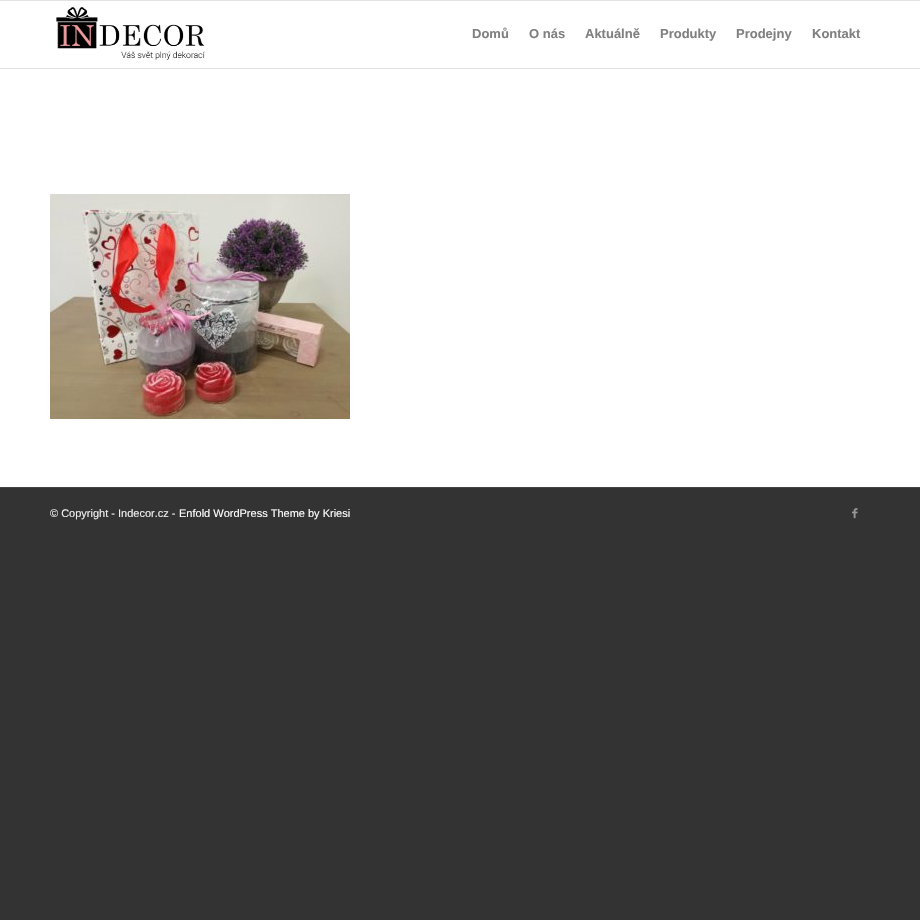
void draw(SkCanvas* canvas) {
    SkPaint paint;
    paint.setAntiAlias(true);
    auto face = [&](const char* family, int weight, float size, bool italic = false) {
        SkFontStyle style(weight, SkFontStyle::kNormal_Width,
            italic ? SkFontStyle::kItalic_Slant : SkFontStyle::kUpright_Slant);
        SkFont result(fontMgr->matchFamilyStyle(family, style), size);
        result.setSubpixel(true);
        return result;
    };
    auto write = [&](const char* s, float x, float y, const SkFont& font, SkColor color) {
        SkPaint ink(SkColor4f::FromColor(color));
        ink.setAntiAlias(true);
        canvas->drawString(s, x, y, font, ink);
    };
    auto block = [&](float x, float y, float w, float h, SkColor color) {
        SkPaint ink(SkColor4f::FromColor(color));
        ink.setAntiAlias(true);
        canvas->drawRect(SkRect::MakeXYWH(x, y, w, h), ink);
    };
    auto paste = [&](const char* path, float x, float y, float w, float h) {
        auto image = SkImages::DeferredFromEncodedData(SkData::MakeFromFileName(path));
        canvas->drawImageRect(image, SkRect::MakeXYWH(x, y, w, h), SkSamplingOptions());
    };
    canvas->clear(SkColorSetRGB(51, 51, 51));
    block(0, 0, 920, 1, SkColorSetRGB(225, 225, 225));
    block(0, 1, 920, 486, SK_ColorWHITE);
    block(0, 68, 920, 1, SkColorSetRGB(225, 225, 225));
    paste("pic1.png", 56, 7, 149, 53);
    auto kFont1 = face("Liberation Sans", 700, 13);
    write("Domů", 472, 38, kFont1, SkColorSetRGB(128, 128, 128));
    write("O nás", 529, 38, kFont1, SkColorSetRGB(128, 128, 128));
    write("Aktuálně", 585, 38, kFont1, SkColorSetRGB(128, 128, 128));
    write("Produkty", 660, 38, kFont1, SkColorSetRGB(128, 128, 128));
    write("Prodejny", 736, 38, kFont1, SkColorSetRGB(128, 128, 128));
    write("Kontakt", 812, 38, kFont1, SkColorSetRGB(128, 128, 128));
    paste("pic2.png", 50, 194, 300, 225);
    block(0, 487, 920, 1, SkColorSetRGB(68, 68, 68));
    auto kFont2 = face("Liberation Sans", 400, 11);
    write("© Copyright - Indecor.cz -", 50, 517, kFont2, SkColorSetRGB(238, 238, 238));
    write("Enfold WordPress Theme by Kriesi", 179, 517, kFont2, SK_ColorWHITE);
    paste("pic3.png", 852, 508, 6, 11);
}
